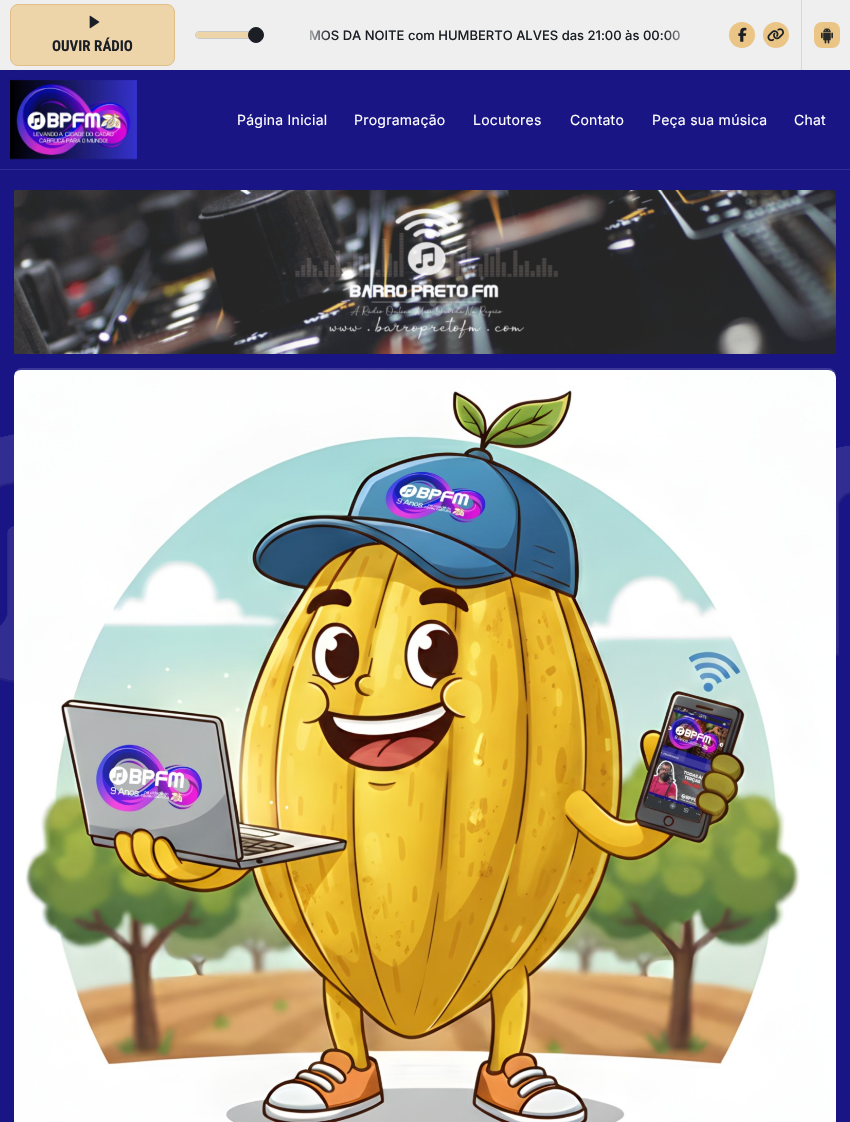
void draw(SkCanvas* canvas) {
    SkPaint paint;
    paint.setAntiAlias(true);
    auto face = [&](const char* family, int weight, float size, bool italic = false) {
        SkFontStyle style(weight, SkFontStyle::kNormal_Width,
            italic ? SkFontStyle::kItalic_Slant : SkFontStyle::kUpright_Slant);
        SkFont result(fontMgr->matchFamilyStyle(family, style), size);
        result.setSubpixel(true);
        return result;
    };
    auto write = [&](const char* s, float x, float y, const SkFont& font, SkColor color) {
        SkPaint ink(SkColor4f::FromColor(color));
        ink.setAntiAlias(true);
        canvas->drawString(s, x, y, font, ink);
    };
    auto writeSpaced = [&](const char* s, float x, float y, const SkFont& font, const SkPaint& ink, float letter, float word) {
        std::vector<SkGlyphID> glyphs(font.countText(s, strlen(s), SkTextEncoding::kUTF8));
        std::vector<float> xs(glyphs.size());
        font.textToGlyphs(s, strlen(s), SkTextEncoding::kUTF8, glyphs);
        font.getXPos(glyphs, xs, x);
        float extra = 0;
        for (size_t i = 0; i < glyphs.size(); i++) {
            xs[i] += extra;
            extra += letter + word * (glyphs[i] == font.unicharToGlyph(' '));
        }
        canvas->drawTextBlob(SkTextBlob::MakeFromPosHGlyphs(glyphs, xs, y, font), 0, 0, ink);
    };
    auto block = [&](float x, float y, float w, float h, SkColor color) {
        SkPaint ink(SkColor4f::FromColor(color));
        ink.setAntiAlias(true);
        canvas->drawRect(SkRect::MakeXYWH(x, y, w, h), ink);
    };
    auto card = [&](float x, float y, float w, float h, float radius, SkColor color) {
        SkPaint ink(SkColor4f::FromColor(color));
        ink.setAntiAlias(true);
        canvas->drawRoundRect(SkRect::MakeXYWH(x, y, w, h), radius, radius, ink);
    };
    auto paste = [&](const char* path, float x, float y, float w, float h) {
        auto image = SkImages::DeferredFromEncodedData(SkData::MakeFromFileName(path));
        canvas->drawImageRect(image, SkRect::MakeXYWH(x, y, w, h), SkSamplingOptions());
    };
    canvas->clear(SkColorSetRGB(25, 21, 133));
    block(0, 0, 850, 70, SkColorSetRGB(239, 239, 239));
    auto kFont1 = face("Inter", 500, 13);
    write("MOS DA NOITE com HUMBERTO ALVES das 21:00 às 00:00", 309, 40, kFont1, SkColorSetRGB(27, 31, 37));
    {
        const SkColor colors[] = {SkColorSetRGB(239, 239, 239), SkColorSetARGB(0, 239, 239, 239)};
        const float stops[] = {0.2f, 1};
        const SkPoint ends[] = {{289, 35}, {331, 35}};
        paint.setShader(SkGradientShader::MakeLinear(ends, colors, stops, 2, SkTileMode::kClamp));
        paint.setAlpha(255);
    }
    canvas->drawRect(SkRect::MakeXYWH(310, 30, 20, 11), paint);
    {
        const SkColor colors[] = {SkColorSetRGB(239, 239, 239), SkColorSetARGB(0, 239, 239, 239)};
        const float stops[] = {0.2f, 1};
        const SkPoint ends[] = {{705, 35}, {663, 35}};
        paint.setShader(SkGradientShader::MakeLinear(ends, colors, stops, 2, SkTileMode::kClamp));
        paint.setAlpha(255);
    }
    canvas->drawRect(SkRect::MakeXYWH(665, 30, 16, 11), paint);
    paint.setShader(nullptr);
    paint.setColor(SkColorSetRGB(235, 197, 133));
    canvas->drawCircle(742, 35, 13, paint);
    paste("pic1.png", 738, 27, 9, 15);
    canvas->drawCircle(776, 35, 13, paint);
    paste("pic2.png", 767, 28, 17, 14);
    block(801, 0, 1, 70, SkColorSetRGB(215, 215, 215));
    card(814, 22, 26, 26, 8, SkColorSetRGB(235, 197, 133));
    paste("pic3.png", 821, 27, 12, 17);
    paint.setStyle(SkPaint::kStroke_Style);
    paint.setStrokeWidth(1);
    paint.setColor(SkColorSetRGB(201, 201, 201));
    canvas->drawRoundRect(SkRect::MakeXYWH(195.5f, 31.5f, 61, 7), 3.5f, 3.5f, paint);
    card(196, 32, 60, 6, 3, SkColorSetRGB(238, 212, 169));
    paint.setStyle(SkPaint::kFill_Style);
    paint.setColor(SkColorSetRGB(27, 31, 37));
    canvas->drawCircle(256, 35, 7.5f, paint);
    paint.setStyle(SkPaint::kStroke_Style);
    canvas->drawCircle(256, 35, 7.5f, paint);
    paint.setStyle(SkPaint::kFill_Style);
    paint.setColor(SkColorSetRGB(238, 212, 169));
    canvas->drawRoundRect(SkRect::MakeXYWH(10.5f, 4.5f, 164, 61), 7.5f, 7.5f, paint);
    paint.setStyle(SkPaint::kStroke_Style);
    paint.setColor(SkColorSetRGB(224, 191, 136));
    canvas->drawRoundRect(SkRect::MakeXYWH(10.5f, 4.5f, 164, 61), 7.5f, 7.5f, paint);
    paste("pic4.png", 89, 15, 11, 14);
    auto kFont2 = face("Roboto Condensed", 700, 15);
    write("OUVIR RÁDIO", 52, 51, kFont2, SkColorSetRGB(27, 31, 37));
    block(0, 169, 850, 1, SkColorSetRGB(48, 44, 145));
    paste("pic5.png", 10, 79, 127, 81);
    auto kFont3 = face("Inter", 400, 14);
    paint.setStyle(SkPaint::kFill_Style);
    paint.setColor(SK_ColorWHITE);
    writeSpaced("Página Inicial", 237, 125, kFont3, paint, 0.25f, 0);
    writeSpaced("Programação", 354, 125, kFont3, paint, 0.25f, 0);
    writeSpaced("Locutores", 473, 125, kFont3, paint, 0.25f, 0);
    writeSpaced("Contato", 570, 125, kFont3, paint, 0.25f, 0);
    writeSpaced("Peça sua música", 652, 125, kFont3, paint, 0.25f, 0);
    writeSpaced("Chat", 794, 125, kFont3, paint, 0.25f, 0);
    paste("pic6.png", 14, 190, 822, 164);
    paste("pic8.png", 0, 434, 850, 249);
    card(14, 368, 822, 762, 8, SkColorSetARGB(38, 255, 255, 255));
    paste("pic7.png", 14, 370, 822, 752);
}
